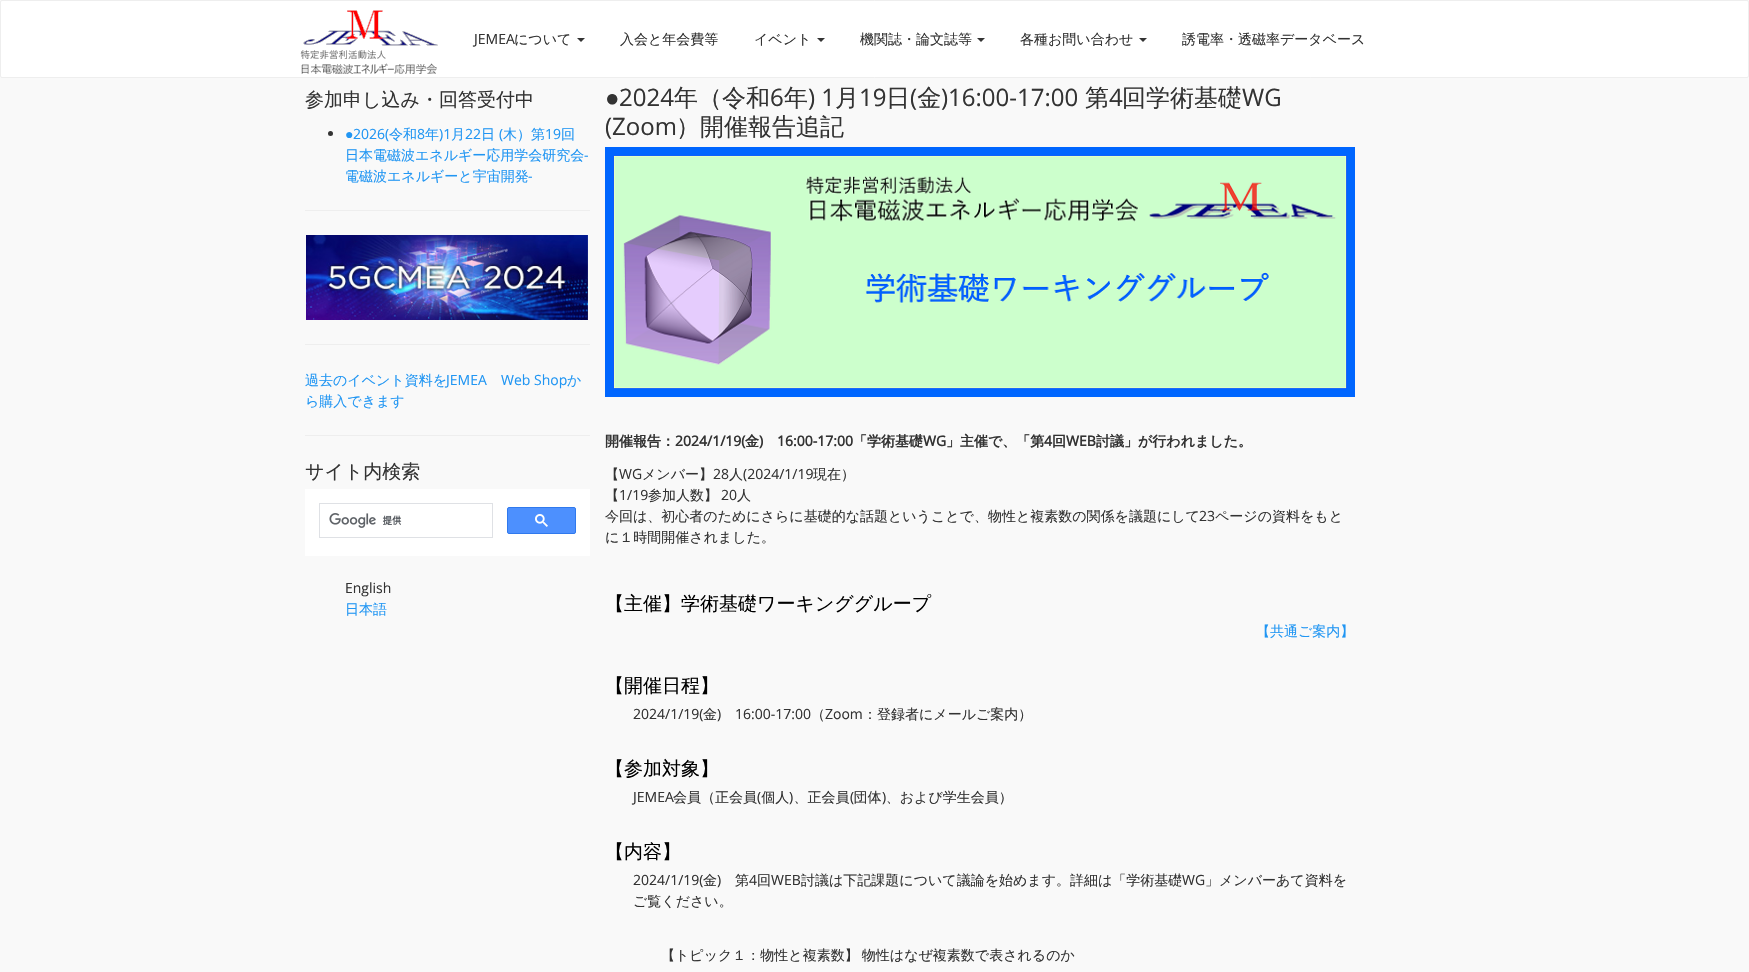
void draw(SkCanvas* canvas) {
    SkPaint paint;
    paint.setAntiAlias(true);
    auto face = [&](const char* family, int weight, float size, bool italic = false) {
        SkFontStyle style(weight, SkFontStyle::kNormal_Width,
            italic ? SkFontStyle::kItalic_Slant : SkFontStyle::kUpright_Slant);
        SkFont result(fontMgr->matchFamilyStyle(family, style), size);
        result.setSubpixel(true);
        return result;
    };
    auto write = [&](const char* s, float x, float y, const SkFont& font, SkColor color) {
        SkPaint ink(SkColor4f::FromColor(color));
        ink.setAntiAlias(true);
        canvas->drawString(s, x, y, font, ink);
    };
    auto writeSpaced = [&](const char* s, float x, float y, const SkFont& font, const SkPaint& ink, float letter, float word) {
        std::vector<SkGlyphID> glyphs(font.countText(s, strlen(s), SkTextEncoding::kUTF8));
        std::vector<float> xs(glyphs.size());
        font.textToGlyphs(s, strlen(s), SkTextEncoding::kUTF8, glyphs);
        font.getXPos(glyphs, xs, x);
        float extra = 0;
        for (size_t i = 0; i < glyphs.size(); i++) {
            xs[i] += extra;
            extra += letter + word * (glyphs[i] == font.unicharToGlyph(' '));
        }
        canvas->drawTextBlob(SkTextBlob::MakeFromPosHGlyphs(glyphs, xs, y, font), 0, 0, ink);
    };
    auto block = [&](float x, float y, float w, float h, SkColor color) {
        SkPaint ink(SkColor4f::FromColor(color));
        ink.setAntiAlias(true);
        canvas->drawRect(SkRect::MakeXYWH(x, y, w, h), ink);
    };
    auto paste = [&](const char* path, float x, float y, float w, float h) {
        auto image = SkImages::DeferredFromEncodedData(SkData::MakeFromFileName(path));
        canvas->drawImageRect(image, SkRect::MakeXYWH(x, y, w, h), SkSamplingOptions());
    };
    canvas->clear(SkColorSetRGB(249, 249, 249));
    paint.setColor(SK_ColorWHITE);
    canvas->drawRoundRect(SkRect::MakeXYWH(0.5f, 0.5f, 1748, 77), 1.5f, 1.5f, paint);
    paint.setStyle(SkPaint::kStroke_Style);
    paint.setStrokeWidth(1);
    paint.setColor(SkColorSetRGB(238, 238, 238));
    canvas->drawRoundRect(SkRect::MakeXYWH(0.5f, 0.5f, 1748, 77), 1.5f, 1.5f, paint);
    paste("pic1.png", 300, 10, 138, 64);
    auto kFont1 = face("Open Sans", 400, 14);
    write("JEMEA", 474, 44, kFont1, SkColorSetRGB(51, 51, 51));
    auto kFont2 = face("WenQuanYi Zen Hei", 500, 14);
    write("について", 514, 44, kFont2, SkColorSetRGB(51, 51, 51));
    paint.setStyle(SkPaint::kFill_Style);
    paint.setColor(SkColorSetRGB(51, 51, 51));
    canvas->drawPath(SkPathBuilder().moveTo(577, 38).lineTo(585, 38).lineTo(581, 42).close().detach(), paint);
    write("入会と年会費等", 620, 44, kFont2, SkColorSetRGB(51, 51, 51));
    write("イベント", 754, 44, kFont2, SkColorSetRGB(51, 51, 51));
    canvas->drawPath(SkPathBuilder().moveTo(817, 38).lineTo(825, 38).lineTo(821, 42).close().detach(), paint);
    write("機関誌・論文誌等", 860, 44, kFont2, SkColorSetRGB(51, 51, 51));
    canvas->drawPath(SkPathBuilder().moveTo(977, 38).lineTo(985, 38).lineTo(981, 42).close().detach(), paint);
    write("各種お問い合わせ", 1020, 44, kFont2, SkColorSetRGB(51, 51, 51));
    canvas->drawPath(SkPathBuilder().moveTo(1139, 38).lineTo(1147, 38).lineTo(1143, 42).close().detach(), paint);
    write("誘電率・透磁率データベース", 1182, 44, kFont2, SkColorSetRGB(51, 51, 51));
    auto kFont3 = face("WenQuanYi Zen Hei", 500, 19);
    write("参加申し込み・回答受付中", 305, 106, kFont3, SkColorSetRGB(51, 51, 51));
    canvas->drawCircle(330.5f, 133.5f, 2.5f, paint);
    auto kFont4 = face("Liberation Sans", 400, 14);
    write("●", 345, 139, kFont4, SkColorSetRGB(33, 150, 243));
    write("2026(", 353, 139, kFont1, SkColorSetRGB(33, 150, 243));
    write("令和", 389, 139, kFont2, SkColorSetRGB(33, 150, 243));
    write("8", 417, 139, kFont1, SkColorSetRGB(33, 150, 243));
    write("年", 425, 139, kFont2, SkColorSetRGB(33, 150, 243));
    write(")1", 439, 139, kFont1, SkColorSetRGB(33, 150, 243));
    write("月", 451, 139, kFont2, SkColorSetRGB(33, 150, 243));
    write("22", 465, 139, kFont1, SkColorSetRGB(33, 150, 243));
    write("日", 481, 139, kFont2, SkColorSetRGB(33, 150, 243));
    write("(", 499, 139, kFont1, SkColorSetRGB(33, 150, 243));
    write("木）第", 503, 139, kFont2, SkColorSetRGB(33, 150, 243));
    write("19", 545, 139, kFont1, SkColorSetRGB(33, 150, 243));
    write("回", 561, 139, kFont2, SkColorSetRGB(33, 150, 243));
    write("日本電磁波エネルギー応用学会研究会", 345, 160, kFont2, SkColorSetRGB(33, 150, 243));
    write("-", 584, 160, kFont1, SkColorSetRGB(33, 150, 243));
    write("電磁波エネルギーと宇宙開発", 345, 181, kFont2, SkColorSetRGB(33, 150, 243));
    write("-", 528, 181, kFont1, SkColorSetRGB(33, 150, 243));
    block(305, 210, 285, 1, SkColorSetRGB(238, 238, 238));
    paste("pic2.png", 306, 235, 282, 85);
    block(305, 344, 285, 1, SkColorSetRGB(238, 238, 238));
    write("過去のイベント資料を", 305, 385, kFont2, SkColorSetRGB(33, 150, 243));
    write("JEMEA", 446, 385, kFont1, SkColorSetRGB(33, 150, 243));
    write("Web Shop", 501, 385, kFont1, SkColorSetRGB(33, 150, 243));
    write("か", 567, 385, kFont2, SkColorSetRGB(33, 150, 243));
    write("ら購入できます", 305, 406, kFont2, SkColorSetRGB(33, 150, 243));
    block(305, 435, 285, 1, SkColorSetRGB(238, 238, 238));
    write("サイト内検索", 305, 478, kFont3, SkColorSetRGB(51, 51, 51));
    block(305, 489, 285, 67, SK_ColorWHITE);
    paint.setStyle(SkPaint::kStroke_Style);
    paint.setColor(SkColorSetRGB(223, 225, 229));
    canvas->drawRect(SkRect::MakeXYWH(319.5f, 503.5f, 173, 34), paint);
    paste("pic3.png", 329, 513, 73, 15);
    paint.setStyle(SkPaint::kFill_Style);
    paint.setColor(SkColorSetRGB(77, 144, 254));
    canvas->drawRoundRect(SkRect::MakeXYWH(507.5f, 507.5f, 68, 26), 1.5f, 1.5f, paint);
    paint.setStyle(SkPaint::kStroke_Style);
    paint.setColor(SkColorSetRGB(48, 121, 237));
    canvas->drawRoundRect(SkRect::MakeXYWH(507.5f, 507.5f, 68, 26), 1.5f, 1.5f, paint);
    paste("pic4.png", 535, 514, 13, 13);
    write("English", 345, 593, kFont1, SkColorSetRGB(51, 51, 51));
    write("日本語", 345, 614, kFont2, SkColorSetRGB(33, 150, 243));
    auto kFont5 = face("Open Sans", 400, 24);
    write("2024", 619, 106, kFont5, SkColorSetRGB(51, 51, 51));
    auto kFont6 = face("WenQuanYi Zen Hei", 500, 24);
    write("年（令和", 674, 106, kFont6, SkColorSetRGB(51, 51, 51));
    write("6", 770, 106, kFont5, SkColorSetRGB(51, 51, 51));
    write("年", 784, 106, kFont6, SkColorSetRGB(51, 51, 51));
    write(") 1", 808, 106, kFont5, SkColorSetRGB(51, 51, 51));
    write("月", 835, 106, kFont6, SkColorSetRGB(51, 51, 51));
    write("19", 859, 106, kFont5, SkColorSetRGB(51, 51, 51));
    write("日 金", 886, 106, kFont6, SkColorSetRGB(51, 51, 51));
    write("第", 1085, 106, kFont6, SkColorSetRGB(51, 51, 51));
    write("回学術基礎", 1122, 106, kFont6, SkColorSetRGB(51, 51, 51));
    auto kFont7 = face("Liberation Sans", 400, 24);
    write("●", 605, 106, kFont7, SkColorSetRGB(51, 51, 51));
    write("(", 910, 106, kFont5, SkColorSetRGB(51, 51, 51));
    write(")16:00-17:00", 941, 106, kFont5, SkColorSetRGB(51, 51, 51));
    write("4", 1109, 106, kFont5, SkColorSetRGB(51, 51, 51));
    write("WG", 1242, 106, kFont5, SkColorSetRGB(51, 51, 51));
    write("(Zoom", 605, 135, kFont5, SkColorSetRGB(51, 51, 51));
    write("）開催報告追記", 676, 135, kFont6, SkColorSetRGB(51, 51, 51));
    paste("pic5.png", 605, 147, 750, 250);
    auto kFont8 = face("WenQuanYi Zen Hei", 700, 14);
    write("開催報告：", 605, 446, kFont8, SkColorSetRGB(51, 51, 51));
    auto kFont9 = face("Open Sans", 700, 14);
    write("2024/1/19(", 675, 446, kFont9, SkColorSetRGB(51, 51, 51));
    write("金", 745, 446, kFont8, SkColorSetRGB(51, 51, 51));
    write(")", 759, 446, kFont9, SkColorSetRGB(51, 51, 51));
    write("16:00-17:00", 777, 446, kFont9, SkColorSetRGB(51, 51, 51));
    write("「学術基礎", 853, 446, kFont8, SkColorSetRGB(51, 51, 51));
    write("WG", 923, 446, kFont9, SkColorSetRGB(51, 51, 51));
    write("」主催で、「第", 946, 446, kFont8, SkColorSetRGB(51, 51, 51));
    write("4", 1044, 446, kFont9, SkColorSetRGB(51, 51, 51));
    write("回", 1052, 446, kFont8, SkColorSetRGB(51, 51, 51));
    write("WEB", 1066, 446, kFont9, SkColorSetRGB(51, 51, 51));
    write("討議」が行われました。", 1096, 446, kFont8, SkColorSetRGB(51, 51, 51));
    write("【", 605, 479, kFont2, SkColorSetRGB(51, 51, 51));
    write("WG", 619, 479, kFont1, SkColorSetRGB(51, 51, 51));
    write("メンバー】", 642, 479, kFont2, SkColorSetRGB(51, 51, 51));
    write("28", 713, 479, kFont1, SkColorSetRGB(51, 51, 51));
    write("人", 729, 479, kFont2, SkColorSetRGB(51, 51, 51));
    write("(2024/1/19", 743, 479, kFont1, SkColorSetRGB(51, 51, 51));
    write("現在）", 813, 479, kFont2, SkColorSetRGB(51, 51, 51));
    write("【", 605, 500, kFont2, SkColorSetRGB(51, 51, 51));
    write("1/19", 619, 500, kFont1, SkColorSetRGB(51, 51, 51));
    write("参加人数】", 648, 500, kFont2, SkColorSetRGB(51, 51, 51));
    write("20", 721, 500, kFont1, SkColorSetRGB(51, 51, 51));
    write("人", 737, 500, kFont2, SkColorSetRGB(51, 51, 51));
    write("今回は、初心者のためにさらに基礎的な話題ということで、物性と複素数の関係を議題にして", 605, 521, kFont2, SkColorSetRGB(51, 51, 51));
    write("23", 1199, 521, kFont1, SkColorSetRGB(51, 51, 51));
    write("ページの資料をもと", 1215, 521, kFont2, SkColorSetRGB(51, 51, 51));
    write("に１時間開催されました。", 605, 542, kFont2, SkColorSetRGB(51, 51, 51));
    write("【主催】学術基礎ワーキンググループ", 605, 610, kFont3, SK_ColorBLACK);
    write("【共通ご案内】", 1256, 636, kFont2, SkColorSetRGB(33, 150, 243));
    write("【開催日程】", 605, 692, kFont3, SK_ColorBLACK);
    write("2024/1/19(", 633, 719, kFont1, SkColorSetRGB(51, 51, 51));
    write("金", 703, 719, kFont2, SkColorSetRGB(51, 51, 51));
    write(")", 717, 719, kFont1, SkColorSetRGB(51, 51, 51));
    write("16:00-17:00", 735, 719, kFont1, SkColorSetRGB(51, 51, 51));
    write("（", 811, 719, kFont2, SkColorSetRGB(51, 51, 51));
    write("Zoom", 825, 719, kFont1, SkColorSetRGB(51, 51, 51));
    write("：登録者にメールご案内）", 863, 719, kFont2, SkColorSetRGB(51, 51, 51));
    write("【参加対象】", 605, 775, kFont3, SK_ColorBLACK);
    write("JEMEA", 633, 802, kFont1, SkColorSetRGB(51, 51, 51));
    write("会員（正会員 個人 、正会員 団体 、および学生会員）", 673, 802, kFont2, SkColorSetRGB(51, 51, 51));
    write("(", 757, 802, kFont1, SkColorSetRGB(51, 51, 51));
    write(")", 789, 802, kFont1, SkColorSetRGB(51, 51, 51));
    write("(", 850, 802, kFont1, SkColorSetRGB(51, 51, 51));
    write(")", 882, 802, kFont1, SkColorSetRGB(51, 51, 51));
    write("【内容】", 605, 858, kFont3, SK_ColorBLACK);
    write("2024/1/19(", 633, 885, kFont1, SkColorSetRGB(51, 51, 51));
    write("金", 703, 885, kFont2, SkColorSetRGB(51, 51, 51));
    write(")", 717, 885, kFont1, SkColorSetRGB(51, 51, 51));
    write("第", 735, 885, kFont2, SkColorSetRGB(51, 51, 51));
    write("4", 749, 885, kFont1, SkColorSetRGB(51, 51, 51));
    write("回", 757, 885, kFont2, SkColorSetRGB(51, 51, 51));
    write("WEB", 771, 885, kFont1, SkColorSetRGB(51, 51, 51));
    write("討議は下記課題について議論を始めます。詳細は「学術基礎", 801, 885, kFont2, SkColorSetRGB(51, 51, 51));
    write("WG", 1182, 885, kFont1, SkColorSetRGB(51, 51, 51));
    write("」メンバーあて資料を", 1205, 885, kFont2, SkColorSetRGB(51, 51, 51));
    write("ご覧ください。", 633, 906, kFont2, SkColorSetRGB(51, 51, 51));
    paint.setStyle(SkPaint::kFill_Style);
    paint.setColor(SkColorSetRGB(51, 51, 51));
    writeSpaced("【トピック１：物性と複素数】 物性はなぜ複素数で表されるのか", 661, 960, kFont2, paint, 0, -1);
}
